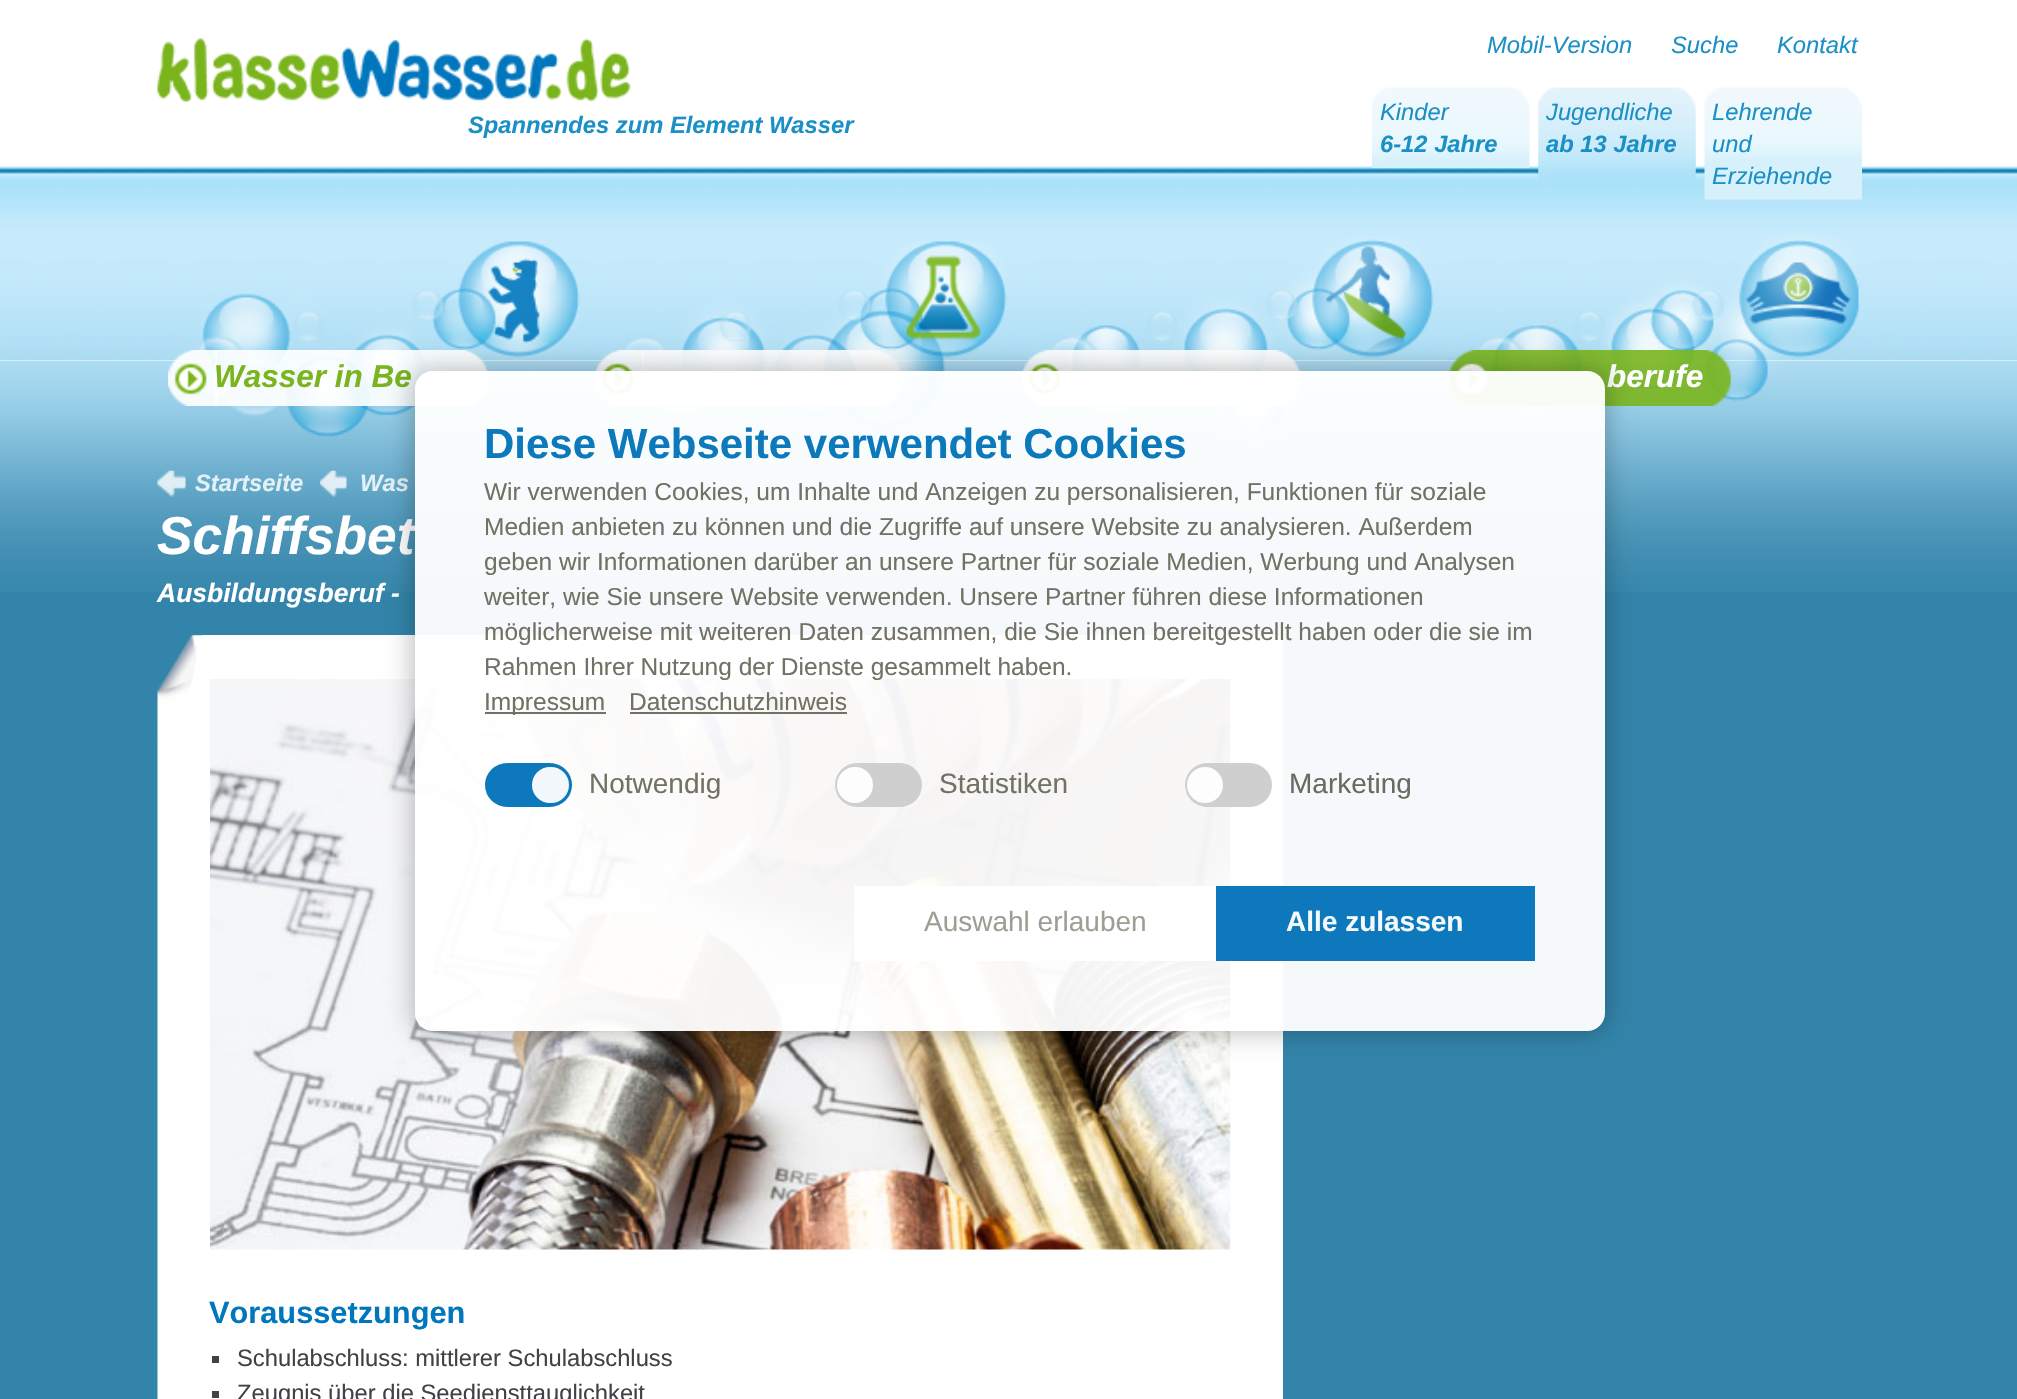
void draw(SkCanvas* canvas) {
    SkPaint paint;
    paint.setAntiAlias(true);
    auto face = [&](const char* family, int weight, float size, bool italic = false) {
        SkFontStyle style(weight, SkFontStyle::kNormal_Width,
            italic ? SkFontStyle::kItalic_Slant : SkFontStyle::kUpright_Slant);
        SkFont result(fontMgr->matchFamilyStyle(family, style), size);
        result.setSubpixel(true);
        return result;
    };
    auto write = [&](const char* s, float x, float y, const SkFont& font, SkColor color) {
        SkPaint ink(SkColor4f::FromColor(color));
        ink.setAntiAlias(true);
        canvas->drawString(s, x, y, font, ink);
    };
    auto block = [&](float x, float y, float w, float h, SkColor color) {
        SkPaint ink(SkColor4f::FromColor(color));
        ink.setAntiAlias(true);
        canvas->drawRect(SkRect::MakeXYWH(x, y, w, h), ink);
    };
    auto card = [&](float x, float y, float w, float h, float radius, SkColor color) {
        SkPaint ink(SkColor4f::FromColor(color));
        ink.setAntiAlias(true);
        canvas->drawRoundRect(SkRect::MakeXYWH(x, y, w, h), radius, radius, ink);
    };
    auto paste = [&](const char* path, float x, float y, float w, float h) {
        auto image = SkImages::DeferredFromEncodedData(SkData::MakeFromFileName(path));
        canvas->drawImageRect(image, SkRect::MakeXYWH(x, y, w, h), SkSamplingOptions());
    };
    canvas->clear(SkColorSetRGB(51, 132, 170));
    paste("pic1.png", 0, 361, 2017, 231);
    block(0, 0, 2017, 361, SK_ColorWHITE);
    paste("pic2.png", 0, 166, 2017, 195);
    paste("pic3.png", 157, 38, 474, 64);
    auto kFont1 = face("Liberation Sans", 700, 23.75f, true);
    write("Spannendes zum Element Wasser", 468, 133, kFont1, SkColorSetRGB(27, 144, 198));
    auto kFont2 = face("Liberation Sans", 400, 23.75f, true);
    write("Mobil-Version", 1487, 53, kFont2, SkColorSetRGB(27, 144, 198));
    write("Suche", 1671, 53, kFont2, SkColorSetRGB(27, 144, 198));
    write("Kontakt", 1777, 53, kFont2, SkColorSetRGB(27, 144, 198));
    paste("pic4.png", 1372, 87, 158, 81);
    write("Kinder", 1380, 120, kFont2, SkColorSetRGB(27, 144, 198));
    write("6-12 Jahre", 1380, 152, kFont1, SkColorSetRGB(27, 144, 198));
    paste("pic5.png", 1538, 87, 158, 93);
    write("Jugendliche", 1546, 120, kFont2, SkColorSetRGB(27, 144, 198));
    write("ab 13 Jahre", 1546, 152, kFont1, SkColorSetRGB(27, 144, 198));
    paste("pic6.png", 1704, 87, 158, 113);
    write("Lehrende", 1712, 120, kFont2, SkColorSetRGB(27, 144, 198));
    write("und", 1712, 152, kFont2, SkColorSetRGB(27, 144, 198));
    write("Erziehende", 1712, 184, kFont2, SkColorSetRGB(27, 144, 198));
    paste("pic7.png", 187, 241, 393, 196);
    paste("pic8.png", 168, 350, 49, 56);
    paste("pic9.png", 215, 350, 274, 56);
    auto kFont3 = face("Liberation Sans", 700, 31.5f, true);
    write("Wasser in Be", 214, 387, kFont3, SkColorSetRGB(122, 181, 29));
    paste("pic10.png", 614, 241, 393, 187);
    paste("pic11.png", 595, 350, 49, 56);
    paste("pic12.png", 642, 350, 260, 56);
    paste("pic13.png", 1041, 237, 393, 212);
    paste("pic14.png", 1022, 350, 49, 56);
    paste("pic15.png", 1069, 350, 232, 56);
    paste("pic16.png", 1468, 231, 391, 185);
    paste("pic17.png", 1449, 350, 49, 56);
    paste("pic18.png", 1496, 350, 235, 56);
    write("berufe", 1607, 387, kFont3, SK_ColorWHITE);
    paste("pic19.png", 157, 470, 29, 27);
    write("Startseite", 195, 491, kFont1, SkColorSetRGB(227, 240, 246));
    paste("pic20.png", 320, 470, 27, 27);
    write("Was", 360, 491, kFont1, SkColorSetRGB(227, 240, 246));
    auto kFont4 = face("Liberation Sans", 700, 53.25f, true);
    write("Schiffsbet", 157, 554, kFont4, SK_ColorWHITE);
    auto kFont5 = face("Liberation Sans", 700, 26.5f, true);
    write("Ausbildungsberuf -", 157, 602, kFont5, SK_ColorWHITE);
    paste("pic21.png", 157, 635, 45, 764);
    {
        const SkColor colors[] = {SkColorSetARGB(0, 255, 255, 255), SkColorSetARGB(0, 255, 255, 255), SK_ColorWHITE};
        const float stops[] = {0, 0.03f, 0.03f};
        const SkPoint ends[] = {{15, 1305}, {1425, 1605}};
        paint.setShader(SkGradientShader::MakeLinear(ends, colors, stops, 3, SkTileMode::kClamp));
        paint.setAlpha(255);
    }
    canvas->drawRect(SkRect::MakeXYWH(190, 635, 1093, 764), paint);
    paste("pic22.png", 210, 679, 1021, 571);
    auto kFont6 = face("Liberation Sans", 700, 30.75f);
    write("Voraussetzungen", 209, 1323, kFont6, SkColorSetRGB(0, 118, 189));
    block(212, 1356, 7, 7, SkColorSetRGB(64, 66, 69));
    auto kFont7 = face("Liberation Sans", 400, 23.75f);
    write("Schulabschluss: mittlerer Schulabschluss", 237, 1366, kFont7, SkColorSetRGB(64, 66, 69));
    block(212, 1391, 7, 7, SkColorSetRGB(64, 66, 69));
    write("Zeugnis über die Seediensttauglichkeit", 237, 1401, kFont7, SkColorSetRGB(64, 66, 69));
    canvas->save();
    canvas->clipPath(SkPathBuilder(SkPathFillType::kEvenOdd).moveTo(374, 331).lineTo(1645, 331).lineTo(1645, 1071).lineTo(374, 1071).close().moveTo(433, 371).lineTo(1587, 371).cubicTo(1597, 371, 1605, 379, 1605, 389).lineTo(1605, 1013).cubicTo(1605, 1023, 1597, 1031, 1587, 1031).lineTo(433, 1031).cubicTo(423, 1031, 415, 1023, 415, 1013).lineTo(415, 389).cubicTo(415, 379, 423, 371, 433, 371).close().detach(), true);
    paint.setShader(nullptr);
    paint.setColor(SkColorSetARGB(61, 0, 0, 0));
    paint.setMaskFilter(SkMaskFilter::MakeBlur(kNormal_SkBlurStyle, 12));
    canvas->drawRoundRect(SkRect::MakeXYWH(411, 368, 1197, 666), 21, 21, paint);
    paint.setMaskFilter(nullptr);
    canvas->restore();
    card(415, 371, 1190, 660, 18, SkColorSetARGB(242, 255, 255, 255));
    auto kFont8 = face("Liberation Sans", 700, 42);
    write("Diese Webseite verwendet Cookies", 484, 458, kFont8, SkColorSetRGB(12, 121, 187));
    auto kFont9 = face("Liberation Sans", 400, 24.5f);
    write("Wir verwenden Cookies, um Inhalte und Anzeigen zu personalisieren, Funktionen für soziale", 484, 500, kFont9, SkColorSetRGB(113, 113, 100));
    write("Medien anbieten zu können und die Zugriffe auf unsere Website zu analysieren. Außerdem", 484, 535, kFont9, SkColorSetRGB(113, 113, 100));
    write("geben wir Informationen darüber an unsere Partner für soziale Medien, Werbung und Analysen", 484, 570, kFont9, SkColorSetRGB(113, 113, 100));
    write("weiter, wie Sie unsere Website verwenden. Unsere Partner führen diese Informationen", 484, 605, kFont9, SkColorSetRGB(113, 113, 100));
    write("möglicherweise mit weiteren Daten zusammen, die Sie ihnen bereitgestellt haben oder die sie im", 484, 640, kFont9, SkColorSetRGB(113, 113, 100));
    write("Rahmen Ihrer Nutzung der Dienste gesammelt haben.", 484, 675, kFont9, SkColorSetRGB(113, 113, 100));
    block(485, 712, 121, 2, SkColorSetARGB(242, 106, 106, 92));
    write("Impressum", 484, 710, kFont9, SkColorSetRGB(113, 113, 100));
    write("Datenschutzhinweis", 629, 710, kFont9, SkColorSetRGB(113, 113, 100));
    block(630, 712, 217, 2, SkColorSetARGB(242, 106, 106, 92));
    card(485, 763, 87, 44, 22, SkColorSetARGB(242, 0, 114, 184));
    card(532, 767, 37, 36, 18, SkColorSetRGB(243, 248, 252));
    auto kFont10 = face("Liberation Sans", 400, 28);
    write("Notwendig", 589, 793, kFont10, SkColorSetRGB(113, 113, 100));
    card(835, 763, 87, 44, 22, SkColorSetARGB(242, 204, 204, 204));
    paint.setColor(SkColorSetRGB(253, 253, 253));
    canvas->drawCircle(855, 785, 18, paint);
    write("Statistiken", 939, 793, kFont10, SkColorSetRGB(113, 113, 100));
    card(1185, 763, 87, 44, 22, SkColorSetARGB(242, 204, 204, 204));
    canvas->drawCircle(1205, 785, 18, paint);
    write("Marketing", 1289, 793, kFont10, SkColorSetRGB(103, 107, 96));
    block(854, 886, 362, 75, SkColorSetARGB(242, 255, 255, 255));
    write("Auswahl erlauben", 924, 931, kFont10, SkColorSetRGB(158, 158, 146));
    block(1216, 886, 319, 75, SkColorSetARGB(242, 0, 114, 184));
    auto kFont11 = face("Liberation Sans", 700, 28);
    write("Alle zulassen", 1286, 931, kFont11, SkColorSetRGB(245, 249, 251));
}
